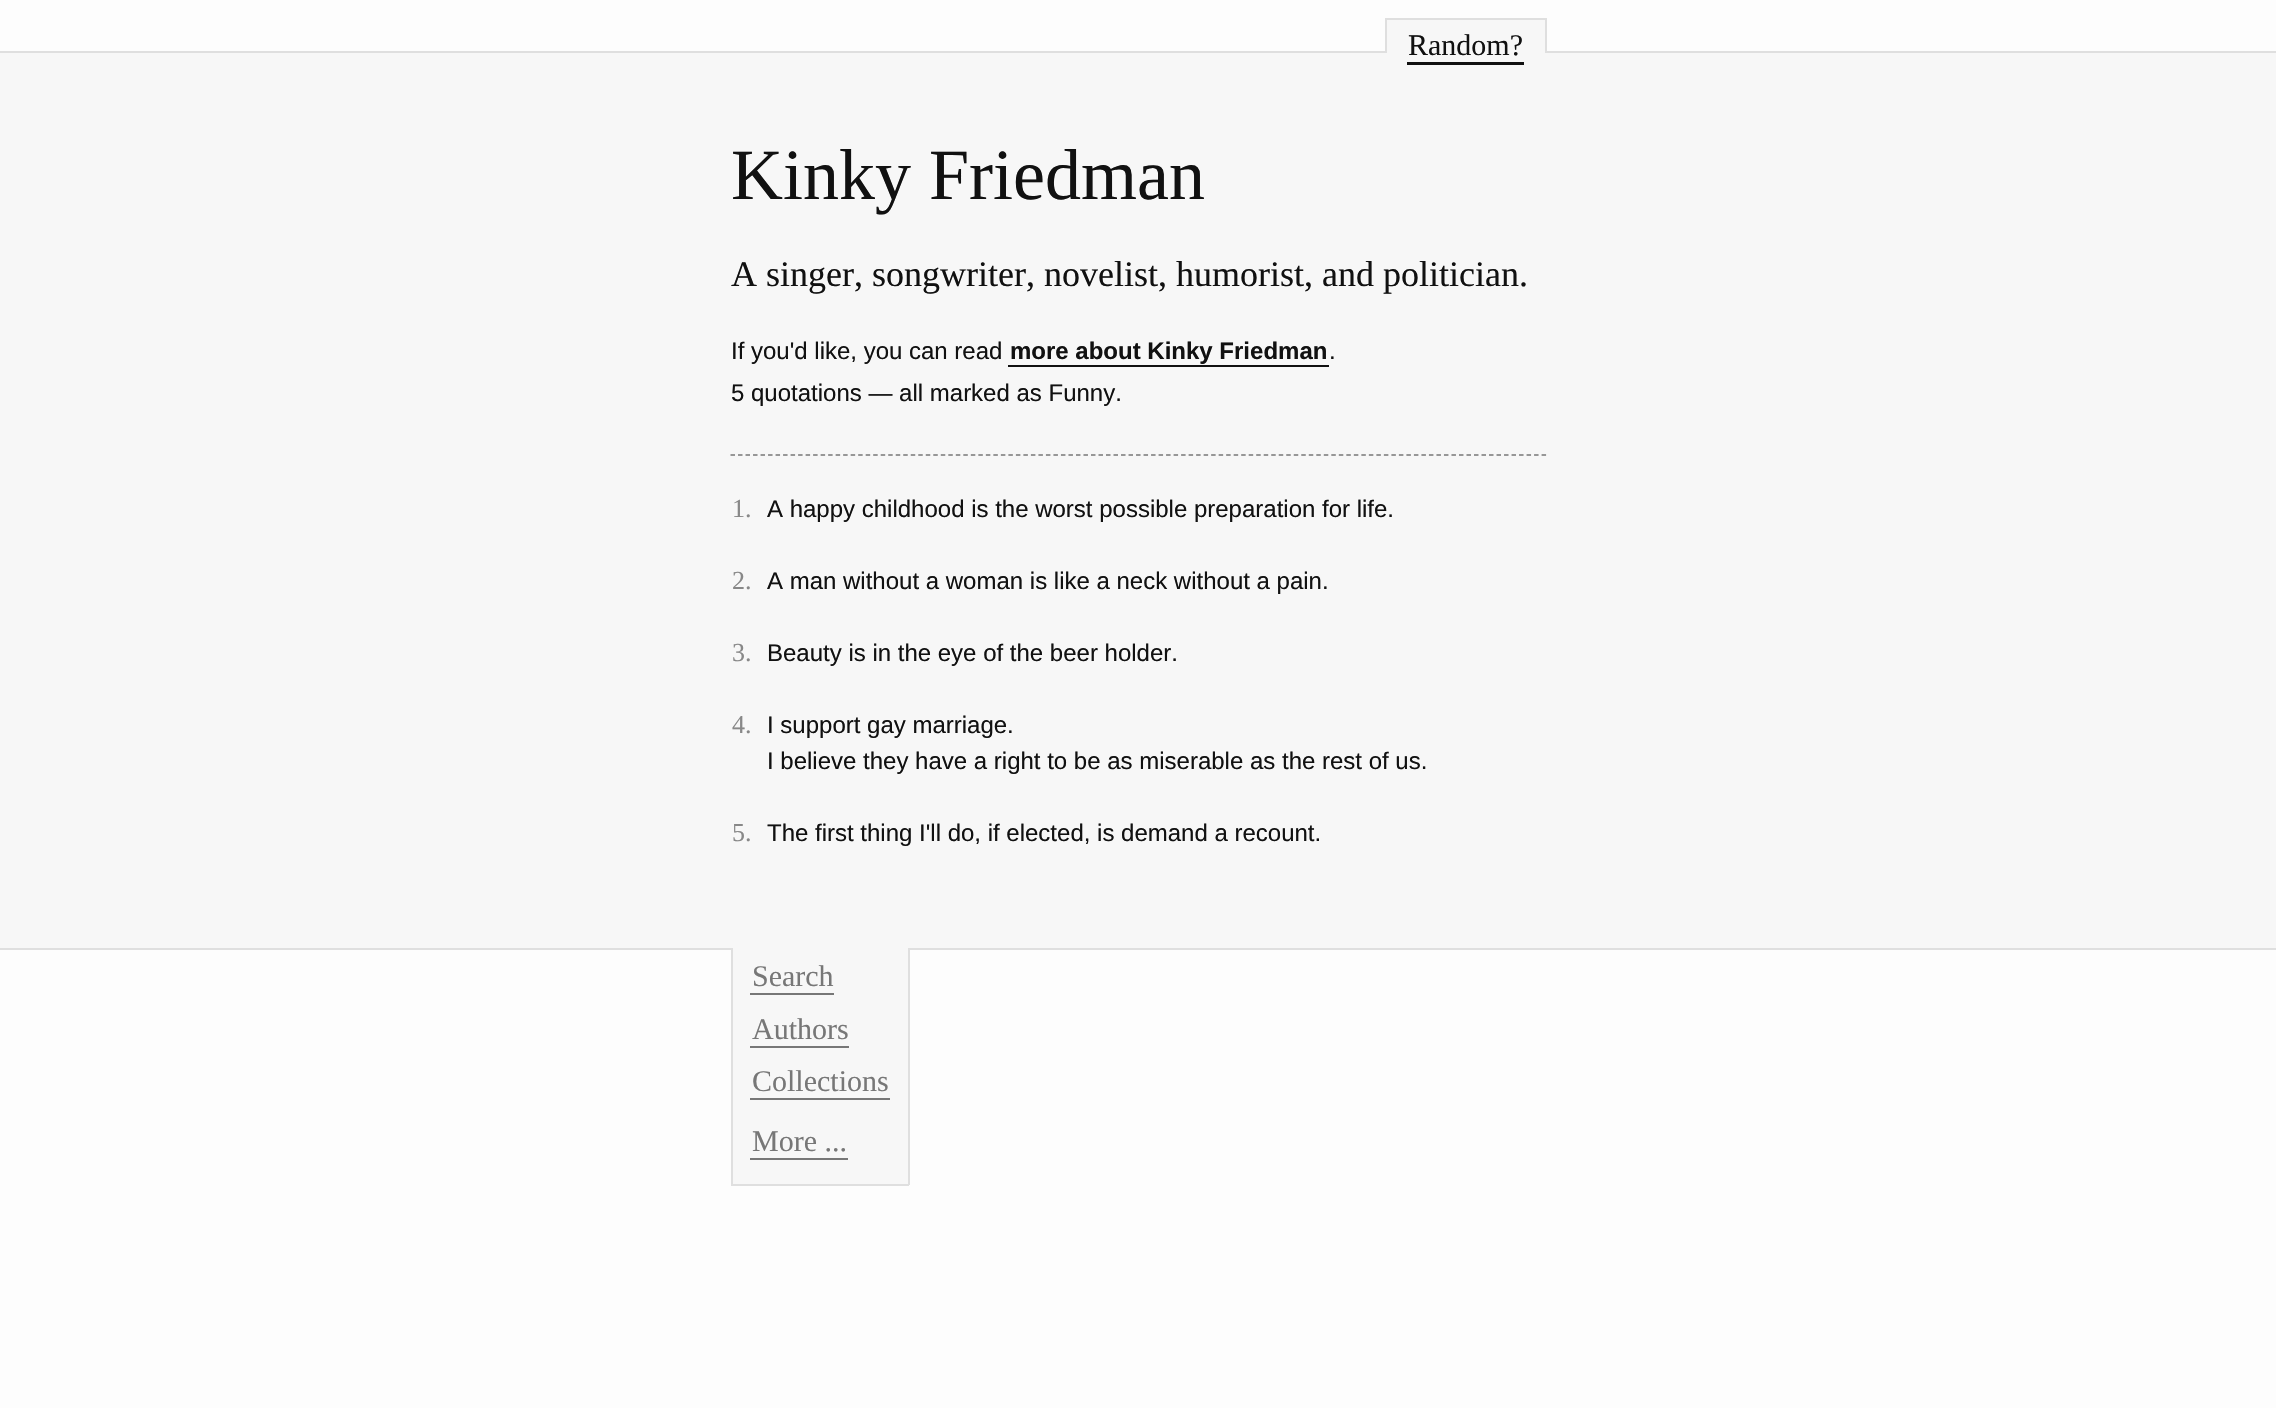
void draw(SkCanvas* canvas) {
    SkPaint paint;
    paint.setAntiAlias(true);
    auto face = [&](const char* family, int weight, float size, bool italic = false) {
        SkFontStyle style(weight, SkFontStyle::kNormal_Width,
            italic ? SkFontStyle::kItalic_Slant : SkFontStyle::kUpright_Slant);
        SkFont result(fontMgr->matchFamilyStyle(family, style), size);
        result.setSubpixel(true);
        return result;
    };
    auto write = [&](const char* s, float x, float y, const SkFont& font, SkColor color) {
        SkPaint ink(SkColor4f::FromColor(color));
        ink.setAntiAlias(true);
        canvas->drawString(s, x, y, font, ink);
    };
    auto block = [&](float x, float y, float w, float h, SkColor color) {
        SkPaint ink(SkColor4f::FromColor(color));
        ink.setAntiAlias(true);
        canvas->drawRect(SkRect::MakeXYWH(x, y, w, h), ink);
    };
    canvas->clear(SkColorSetRGB(253, 253, 253));
    block(0, 53, 2276, 895, SkColorSetRGB(247, 247, 247));
    block(0, 51, 2276, 2, SkColorSetRGB(223, 223, 223));
    block(0, 948, 2276, 2, SkColorSetRGB(223, 223, 223));
    block(1387, 20, 158, 33, SkColorSetRGB(247, 247, 247));
    block(1385, 18, 162, 2, SkColorSetRGB(223, 223, 223));
    block(1545, 18, 2, 35, SkColorSetRGB(223, 223, 223));
    block(1385, 18, 2, 35, SkColorSetRGB(223, 223, 223));
    auto kFont1 = face("Liberation Serif", 400, 30);
    write("Random?", 1408, 55, kFont1, SkColorSetRGB(17, 17, 17));
    block(1407, 62, 117, 3, SkColorSetRGB(17, 17, 17));
    auto kFont2 = face("Liberation Serif", 400, 72);
    write("Kinky Friedman", 731, 199, kFont2, SkColorSetRGB(17, 17, 17));
    auto kFont3 = face("Liberation Serif", 400, 36);
    write("A singer, songwriter, novelist, humorist, and politician.", 731, 286, kFont3, SkColorSetRGB(17, 17, 17));
    auto kFont4 = face("Liberation Sans", 400, 24);
    write("If you'd like, you can read", 731, 359, kFont4, SkColorSetRGB(17, 17, 17));
    auto kFont5 = face("Liberation Sans", 700, 24);
    write("more about Kinky Friedman", 1010, 359, kFont5, SkColorSetRGB(17, 17, 17));
    block(1008, 365, 321, 2, SkColorSetRGB(17, 17, 17));
    write(".", 1329, 359, kFont4, SkColorSetRGB(17, 17, 17));
    write("5 quotations — all marked as Funny.", 731, 401, kFont4, SkColorSetRGB(17, 17, 17));
    paint.setStyle(SkPaint::kStroke_Style);
    paint.setStrokeWidth(1.5f);
    paint.setColor(SkColorSetRGB(119, 119, 119));
    paint.setPathEffect(SkDashPathEffect::Make({{4.5f, 3.01f}}, 0));
    canvas->drawPath(SkPathBuilder().moveTo(730.5f, 455).lineTo(1546.5f, 455).detach(), paint);
    paint.setPathEffect(nullptr);
    auto kFont6 = face("Liberation Serif", 400, 26);
    write("1.", 732, 517, kFont6, SkColorSetRGB(136, 136, 136));
    write("A happy childhood is the worst possible preparation for life.", 767, 517, kFont4, SkColorSetRGB(17, 17, 17));
    write("2.", 732, 589, kFont6, SkColorSetRGB(136, 136, 136));
    write("A man without a woman is like a neck without a pain.", 767, 589, kFont4, SkColorSetRGB(17, 17, 17));
    write("3.", 732, 661, kFont6, SkColorSetRGB(136, 136, 136));
    write("Beauty is in the eye of the beer holder.", 767, 661, kFont4, SkColorSetRGB(17, 17, 17));
    write("4.", 732, 733, kFont6, SkColorSetRGB(136, 136, 136));
    write("I support gay marriage.", 767, 733, kFont4, SkColorSetRGB(17, 17, 17));
    write("I believe they have a right to be as miserable as the rest of us.", 767, 769, kFont4, SkColorSetRGB(17, 17, 17));
    write("5.", 732, 841, kFont6, SkColorSetRGB(136, 136, 136));
    write("The first thing I'll do, if elected, is demand a recount.", 767, 841, kFont4, SkColorSetRGB(17, 17, 17));
    block(733, 948, 175, 236, SkColorSetRGB(247, 247, 247));
    block(908, 948, 2, 237, SkColorSetRGB(223, 223, 223));
    block(731, 1184, 178, 2, SkColorSetRGB(223, 223, 223));
    block(731, 948, 2, 237, SkColorSetRGB(223, 223, 223));
    write("Search", 752, 986, kFont1, SkColorSetRGB(119, 119, 119));
    block(750, 993, 84, 2, SkColorSetRGB(119, 119, 119));
    write("Authors", 752, 1039, kFont1, SkColorSetRGB(119, 119, 119));
    block(750, 1046, 99, 2, SkColorSetRGB(119, 119, 119));
    write("Collections", 752, 1091, kFont1, SkColorSetRGB(119, 119, 119));
    block(750, 1098, 140, 2, SkColorSetRGB(119, 119, 119));
    write("More ...", 752, 1151, kFont1, SkColorSetRGB(119, 119, 119));
    block(750, 1158, 98, 2, SkColorSetRGB(119, 119, 119));
}
